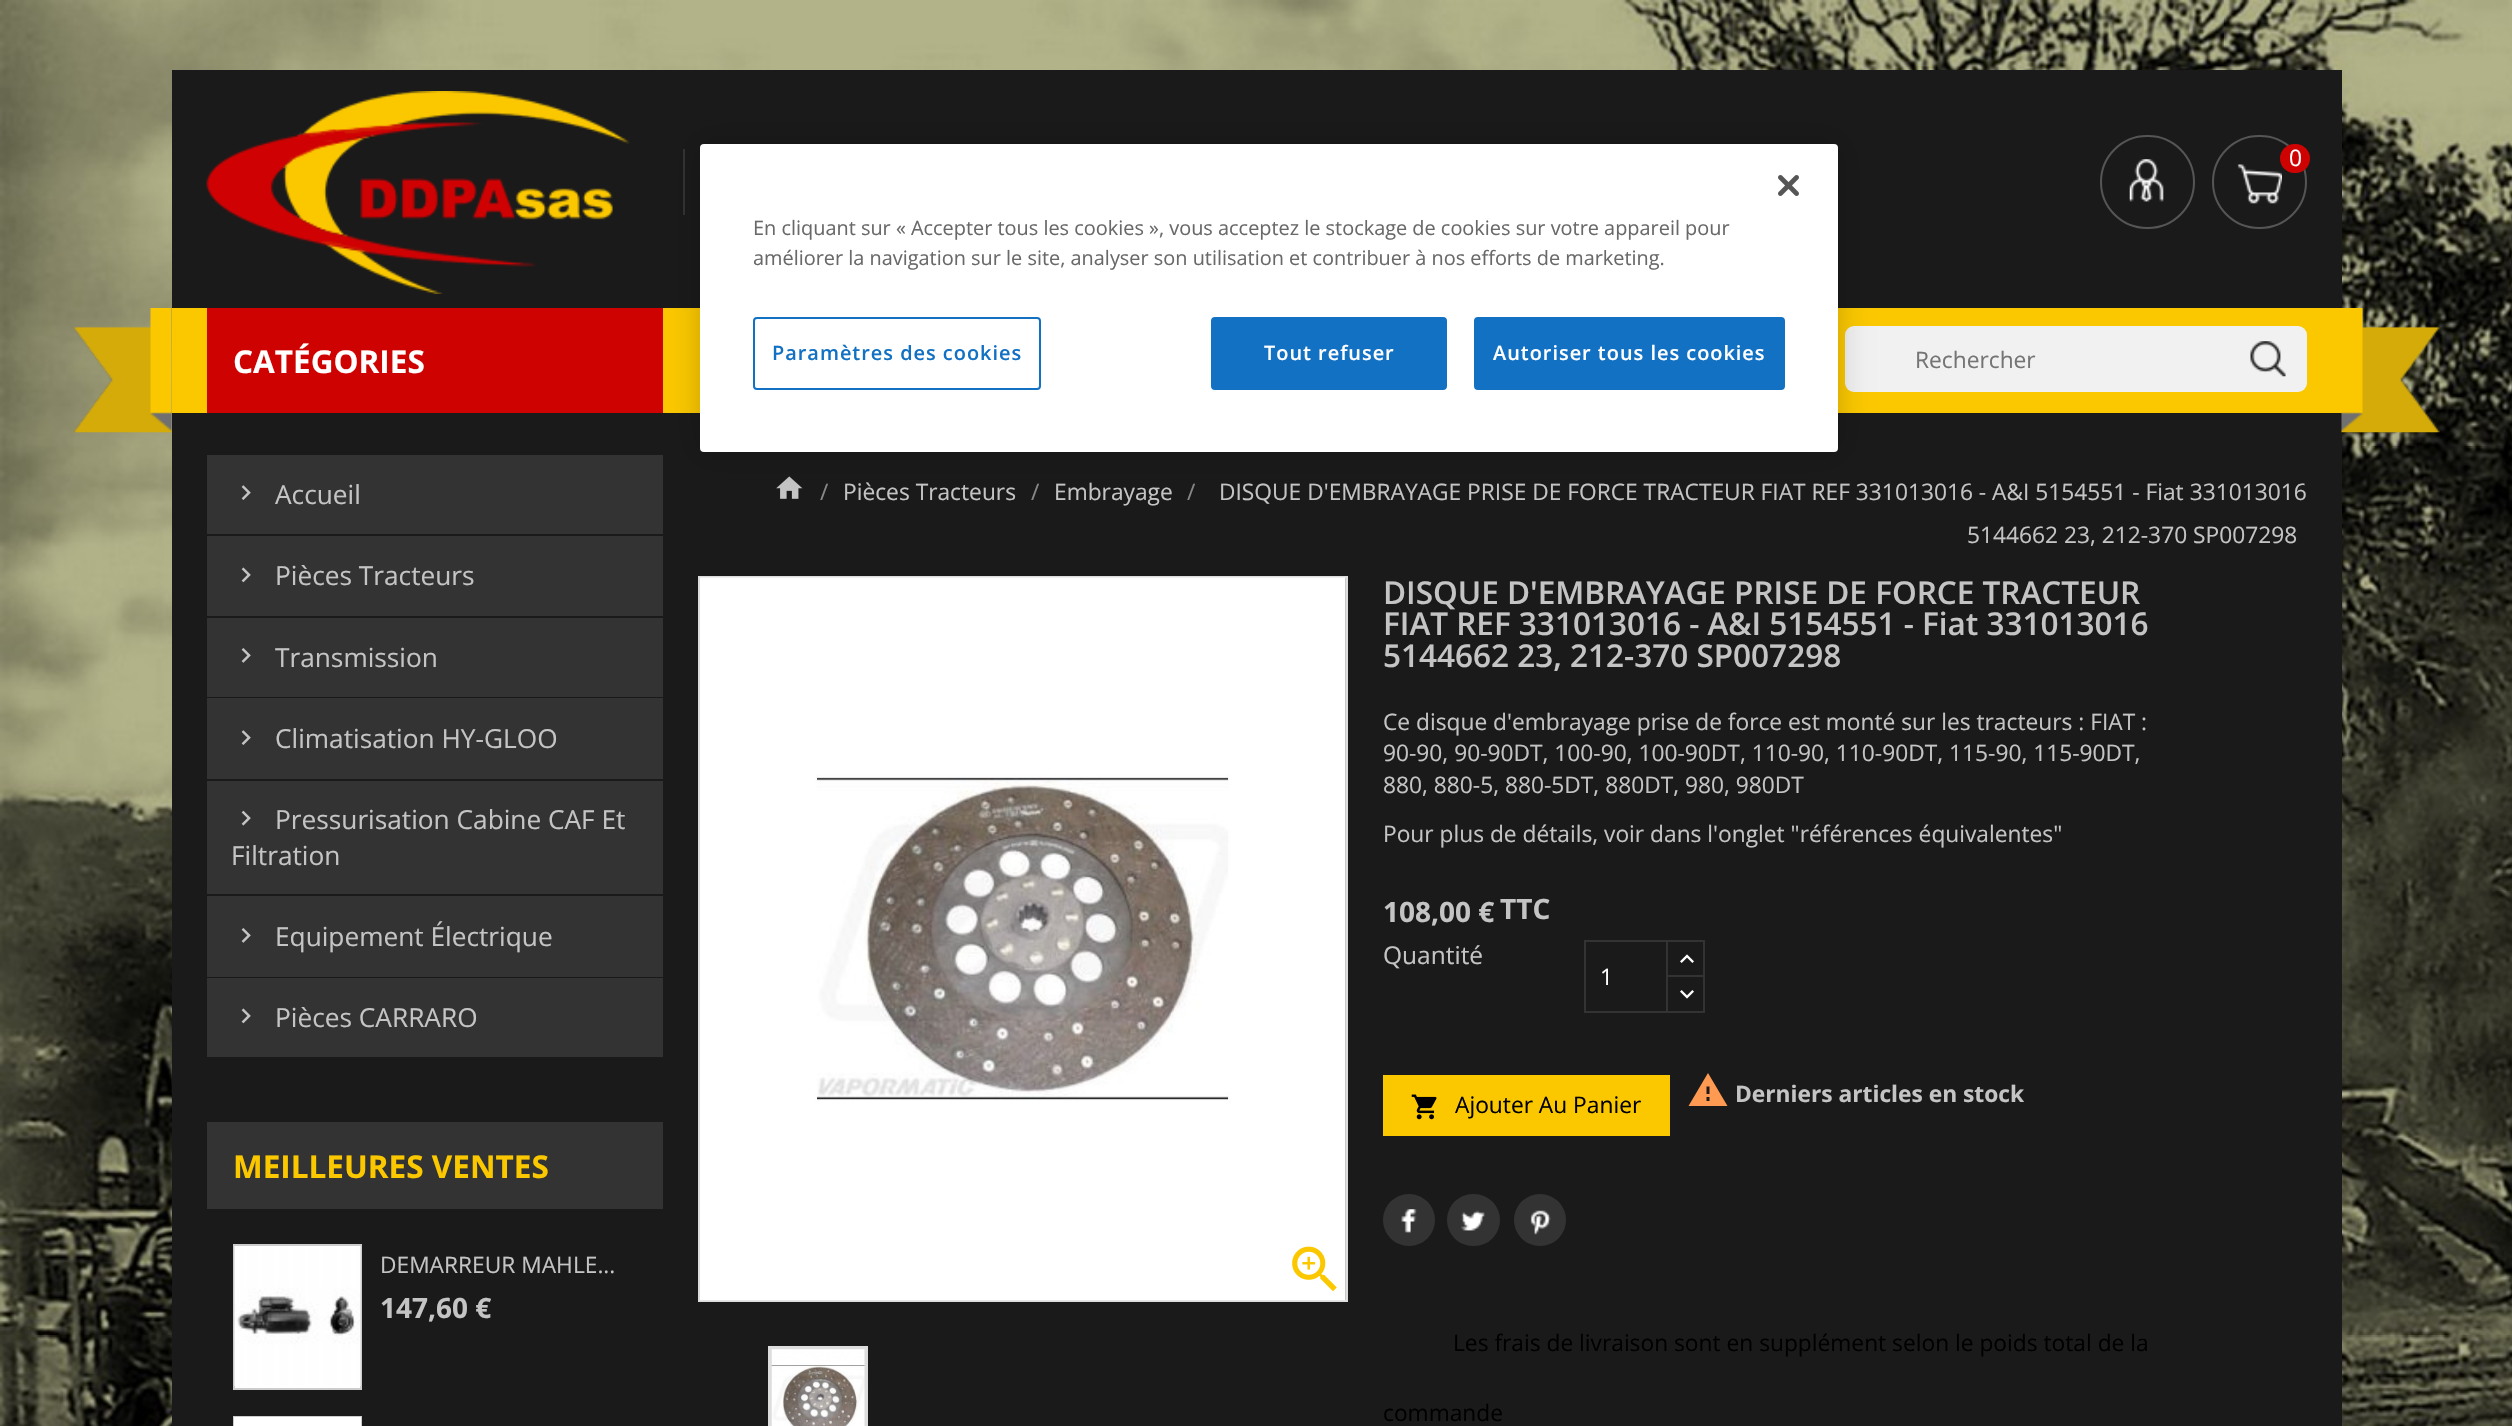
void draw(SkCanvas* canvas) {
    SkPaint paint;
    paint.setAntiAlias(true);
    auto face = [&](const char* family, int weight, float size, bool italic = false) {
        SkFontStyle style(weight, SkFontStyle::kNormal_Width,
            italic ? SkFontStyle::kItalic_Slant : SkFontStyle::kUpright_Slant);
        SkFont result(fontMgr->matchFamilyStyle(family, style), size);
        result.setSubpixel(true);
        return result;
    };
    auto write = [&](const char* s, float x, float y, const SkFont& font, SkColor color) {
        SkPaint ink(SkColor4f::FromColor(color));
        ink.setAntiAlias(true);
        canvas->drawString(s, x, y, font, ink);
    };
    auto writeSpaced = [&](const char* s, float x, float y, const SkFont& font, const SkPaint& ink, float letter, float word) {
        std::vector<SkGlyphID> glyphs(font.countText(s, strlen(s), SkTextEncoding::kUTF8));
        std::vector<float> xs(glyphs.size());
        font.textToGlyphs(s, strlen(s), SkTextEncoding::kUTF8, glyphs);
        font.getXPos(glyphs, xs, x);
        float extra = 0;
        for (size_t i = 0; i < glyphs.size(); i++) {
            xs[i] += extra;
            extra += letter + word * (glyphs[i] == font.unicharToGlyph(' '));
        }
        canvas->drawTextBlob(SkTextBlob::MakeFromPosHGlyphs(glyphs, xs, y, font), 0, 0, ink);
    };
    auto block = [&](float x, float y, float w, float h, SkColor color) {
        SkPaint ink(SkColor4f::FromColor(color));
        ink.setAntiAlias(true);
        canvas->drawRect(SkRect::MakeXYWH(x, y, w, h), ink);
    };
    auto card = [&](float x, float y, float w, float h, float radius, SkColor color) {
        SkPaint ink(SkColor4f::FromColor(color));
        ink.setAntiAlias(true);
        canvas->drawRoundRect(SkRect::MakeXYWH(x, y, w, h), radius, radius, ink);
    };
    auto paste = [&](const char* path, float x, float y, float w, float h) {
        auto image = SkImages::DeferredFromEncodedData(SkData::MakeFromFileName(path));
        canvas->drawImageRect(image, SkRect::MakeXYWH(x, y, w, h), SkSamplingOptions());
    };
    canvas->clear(SK_ColorWHITE);
    paste("pic1.png", 0, 0, 2512, 1426);
    block(172, 70, 2170, 1356, SkColorSetRGB(26, 26, 26));
    paste("pic2.png", 206, 91, 424, 203);
    block(683, 149, 2, 66, SkColorSetRGB(51, 51, 51));
    paste("pic3.png", 2129, 159, 35, 43);
    paint.setStyle(SkPaint::kStroke_Style);
    paint.setStrokeWidth(2);
    paint.setColor(SkColorSetRGB(85, 85, 85));
    canvas->drawRoundRect(SkRect::MakeXYWH(2101, 136, 93, 92), 46, 46, paint);
    paste("pic4.png", 2237, 164, 45, 40);
    canvas->drawRoundRect(SkRect::MakeXYWH(2213, 136, 93, 92), 46, 46, paint);
    card(2280, 144, 30, 29, 14.5f, SkColorSetRGB(207, 2, 2));
    auto kFont1 = face("Open Sans", 400, 22.75f);
    write("0", 2289, 166, kFont1, SK_ColorWHITE);
    block(172, 308, 2170, 105, SkColorSetRGB(251, 200, 0));
    paste("pic5.png", 73, 308, 99, 125);
    card(1845, 326, 462, 66, 9, SkColorSetRGB(241, 241, 241));
    write("Rechercher", 1915, 368, kFont1, SkColorSetRGB(117, 117, 117));
    paste("pic6.png", 2250, 341, 36, 36);
    paste("pic7.png", 2341, 308, 99, 125);
    block(207, 308, 456, 105, SkColorSetRGB(207, 2, 2));
    auto kFont2 = face("Open Sans", 700, 31.5f);
    write("CATÉGORIES", 233, 373, kFont2, SK_ColorWHITE);
    block(207, 455, 456, 79, SkColorSetRGB(51, 51, 51));
    paste("pic8.png", 241, 485, 10, 15);
    auto kFont3 = face("Open Sans", 400, 26.25f);
    write("Accueil", 275, 504, kFont3, SkColorSetRGB(196, 196, 196));
    block(207, 536, 456, 80, SkColorSetRGB(51, 51, 51));
    paste("pic9.png", 241, 567, 10, 16);
    write("Pièces Tracteurs", 275, 585, kFont3, SkColorSetRGB(196, 196, 196));
    block(207, 618, 456, 79, SkColorSetRGB(51, 51, 51));
    paste("pic10.png", 241, 648, 10, 15);
    write("Transmission", 275, 667, kFont3, SkColorSetRGB(196, 196, 196));
    block(207, 698, 456, 81, SkColorSetRGB(51, 51, 51));
    paste("pic8.png", 241, 730, 10, 15);
    write("Climatisation HY-GLOO", 275, 748, kFont3, SkColorSetRGB(196, 196, 196));
    block(207, 781, 456, 113, SkColorSetRGB(51, 51, 51));
    paste("pic11.png", 241, 810, 10, 16);
    write("Pressurisation Cabine CAF Et", 275, 829, kFont3, SkColorSetRGB(196, 196, 196));
    write("Filtration", 231, 865, kFont3, SkColorSetRGB(196, 196, 196));
    block(207, 896, 456, 81, SkColorSetRGB(51, 51, 51));
    paste("pic10.png", 241, 928, 10, 15);
    write("Equipement Électrique", 275, 946, kFont3, SkColorSetRGB(196, 196, 196));
    block(207, 978, 456, 79, SkColorSetRGB(51, 51, 51));
    paste("pic9.png", 241, 1008, 10, 16);
    write("Pièces CARRARO", 275, 1027, kFont3, SkColorSetRGB(196, 196, 196));
    block(207, 1122, 456, 87, SkColorSetRGB(51, 51, 51));
    write("MEILLEURES VENTES", 233, 1178, kFont2, SkColorSetRGB(251, 200, 0));
    block(235, 1386, 125, 2, SK_ColorWHITE);
    paint.setColor(SkColorSetRGB(204, 204, 204));
    canvas->drawRect(SkRect::MakeXYWH(234, 1245, 127, 144), paint);
    paste("pic12.png", 234, 1246, 127, 140);
    write("DEMARREUR MAHLE...", 380, 1273, kFont1, SkColorSetRGB(196, 196, 196));
    auto kFont4 = face("Open Sans", 700, 28);
    write("147,60 €", 380, 1318, kFont4, SkColorSetRGB(196, 196, 196));
    canvas->drawRect(SkRect::MakeXYWH(234, 1417, 127, 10), paint);
    block(234, 1417, 127, 9, SK_ColorWHITE);
    paste("pic13.png", 776, 476, 27, 23);
    write("/", 820, 500, kFont1, SkColorSetRGB(135, 135, 135));
    write("Pièces Tracteurs", 843, 500, kFont1, SkColorSetRGB(196, 196, 196));
    write("/", 1031, 500, kFont1, SkColorSetRGB(135, 135, 135));
    write("Embrayage", 1054, 500, kFont1, SkColorSetRGB(196, 196, 196));
    write("/", 1187, 500, kFont1, SkColorSetRGB(135, 135, 135));
    write("DISQUE D'EMBRAYAGE PRISE DE FORCE TRACTEUR FIAT REF 331013016 - A&I 5154551 - Fiat 331013016", 1219, 500, kFont1, SkColorSetRGB(196, 196, 196));
    write("5144662 23, 212-370 SP007298", 1967, 543, kFont1, SkColorSetRGB(196, 196, 196));
    paint.setColor(SkColorSetRGB(221, 221, 221));
    canvas->drawRect(SkRect::MakeXYWH(699, 577, 648, 724), paint);
    paste("pic14.png", 700, 577, 646, 724);
    paste("pic15.png", 1292, 1246, 45, 46);
    paint.setStrokeWidth(4);
    canvas->drawRect(SkRect::MakeXYWH(770, 1348, 96, 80), paint);
    paste("pic16.png", 771, 1349, 94, 77);
    auto kFont5 = face("Open Sans", 600, 31.5f);
    write("DISQUE D'EMBRAYAGE PRISE DE FORCE TRACTEUR", 1383, 604, kFont5, SkColorSetRGB(196, 196, 196));
    write("FIAT REF 331013016 - A&I 5154551 - Fiat 331013016", 1383, 635, kFont5, SkColorSetRGB(196, 196, 196));
    write("5144662 23, 212-370 SP007298", 1383, 667, kFont5, SkColorSetRGB(196, 196, 196));
    write("Ce disque d'embrayage prise de force est monté sur les tracteurs : FIAT :", 1383, 730, kFont1, SkColorSetRGB(196, 196, 196));
    write("90-90, 90-90DT, 100-90, 100-90DT, 110-90, 110-90DT, 115-90, 115-90DT,", 1383, 761, kFont1, SkColorSetRGB(196, 196, 196));
    write("880, 880-5, 880-5DT, 880DT, 980, 980DT", 1383, 793, kFont1, SkColorSetRGB(196, 196, 196));
    write("Pour plus de détails, voir dans l'onglet \"références équivalentes\"", 1383, 842, kFont1, SkColorSetRGB(196, 196, 196));
    write("108,00 €", 1383, 922, kFont4, SkColorSetRGB(196, 196, 196));
    write("TTC", 1500, 919, kFont4, SkColorSetRGB(196, 196, 196));
    auto kFont6 = face("Open Sans", 400, 24.5f);
    write("Quantité", 1383, 964, kFont6, SkColorSetRGB(196, 196, 196));
    paint.setStrokeWidth(2);
    paint.setColor(SkColorSetRGB(51, 51, 51));
    canvas->drawRect(SkRect::MakeXYWH(1667, 941, 37, 36), paint);
    block(1668, 977, 35, 1, SkColorSetRGB(26, 26, 26));
    canvas->drawRect(SkRect::MakeXYWH(1667, 976, 37, 36), paint);
    canvas->drawRect(SkRect::MakeXYWH(1585, 941, 82, 71), paint);
    write("1", 1600, 985, kFont1, SK_ColorWHITE);
    paste("pic17.png", 1680, 954, 14, 9);
    paste("pic18.png", 1680, 990, 14, 9);
    paint.setStyle(SkPaint::kFill_Style);
    paint.setColor(SkColorSetRGB(255, 154, 82));
    canvas->drawPath(SkPathBuilder().moveTo(1709.5f, 1094).lineTo(1709.5f, 1086.5f).lineTo(1706.5f, 1086.5f).lineTo(1706.5f, 1094).close().moveTo(1709.5f, 1101).lineTo(1709.5f, 1097).lineTo(1706.5f, 1097).lineTo(1706.5f, 1101).close().moveTo(1688.5f, 1106).lineTo(1708, 1073).lineTo(1727.5f, 1106).close().detach(), paint);
    auto kFont7 = face("Open Sans", 700, 22.75f);
    write("Derniers articles en stock", 1735, 1102, kFont7, SkColorSetRGB(196, 196, 196));
    block(1383, 1075, 287, 61, SkColorSetRGB(251, 200, 0));
    paste("pic19.png", 1411, 1094, 26, 26);
    write("Ajouter Au Panier", 1455, 1113, kFont1, SK_ColorBLACK);
    paint.setColor(SkColorSetRGB(51, 51, 51));
    canvas->drawCircle(1409, 1220, 26, paint);
    paste("pic20.png", 1401, 1209, 16, 24);
    card(1447, 1194, 53, 52, 26, SkColorSetRGB(51, 51, 51));
    paste("pic21.png", 1461, 1210, 24, 21);
    canvas->drawCircle(1540, 1220, 26, paint);
    paste("pic22.png", 1530, 1210, 21, 25);
    write("Les frais de livraison sont en supplément selon le poids total de la", 1453, 1351, kFont1, SK_ColorBLACK);
    write("commande", 1383, 1421, kFont1, SK_ColorBLACK);
    paint.setColor(SkColorSetARGB(51, 0, 0, 0));
    paint.setMaskFilter(SkMaskFilter::MakeBlur(kNormal_SkBlurStyle, 16));
    canvas->drawRoundRect(SkRect::MakeXYWH(700, 144, 1138, 308), 4, 4, paint);
    paint.setMaskFilter(nullptr);
    card(700, 144, 1138, 308, 4, SK_ColorWHITE);
    paste("pic23.png", 1778, 175, 21, 21);
    auto kFont8 = face("Open Sans", 400, 19.9f);
    write("En cliquant sur « Accepter tous les cookies », vous acceptez le stockage de cookies sur votre appareil pour", 753, 235, kFont8, SkColorSetRGB(105, 105, 105));
    write("améliorer la navigation sur le site, analyser son utilisation et contribuer à nos efforts de marketing.", 753, 265, kFont8, SkColorSetRGB(105, 105, 105));
    paint.setStyle(SkPaint::kStroke_Style);
    paint.setColor(SkColorSetRGB(19, 113, 195));
    canvas->drawRoundRect(SkRect::MakeXYWH(754, 318, 286, 71), 3, 3, paint);
    auto kFont9 = face("Open Sans", 600, 19.9f);
    paint.setStyle(SkPaint::kFill_Style);
    writeSpaced("Paramètres des cookies", 772, 360, kFont9, paint, 1, 0);
    canvas->drawRoundRect(SkRect::MakeXYWH(1212, 318, 234, 71), 3, 3, paint);
    paint.setStyle(SkPaint::kStroke_Style);
    canvas->drawRoundRect(SkRect::MakeXYWH(1212, 318, 234, 71), 3, 3, paint);
    paint.setStyle(SkPaint::kFill_Style);
    paint.setColor(SK_ColorWHITE);
    writeSpaced("Tout refuser", 1264, 360, kFont9, paint, 1, 0);
    paint.setColor(SkColorSetRGB(19, 113, 195));
    canvas->drawRoundRect(SkRect::MakeXYWH(1475, 318, 309, 71), 3, 3, paint);
    paint.setStyle(SkPaint::kStroke_Style);
    canvas->drawRoundRect(SkRect::MakeXYWH(1475, 318, 309, 71), 3, 3, paint);
    paint.setStyle(SkPaint::kFill_Style);
    paint.setColor(SK_ColorWHITE);
    writeSpaced("Autoriser tous les cookies", 1493, 360, kFont9, paint, 1, 0);
}
